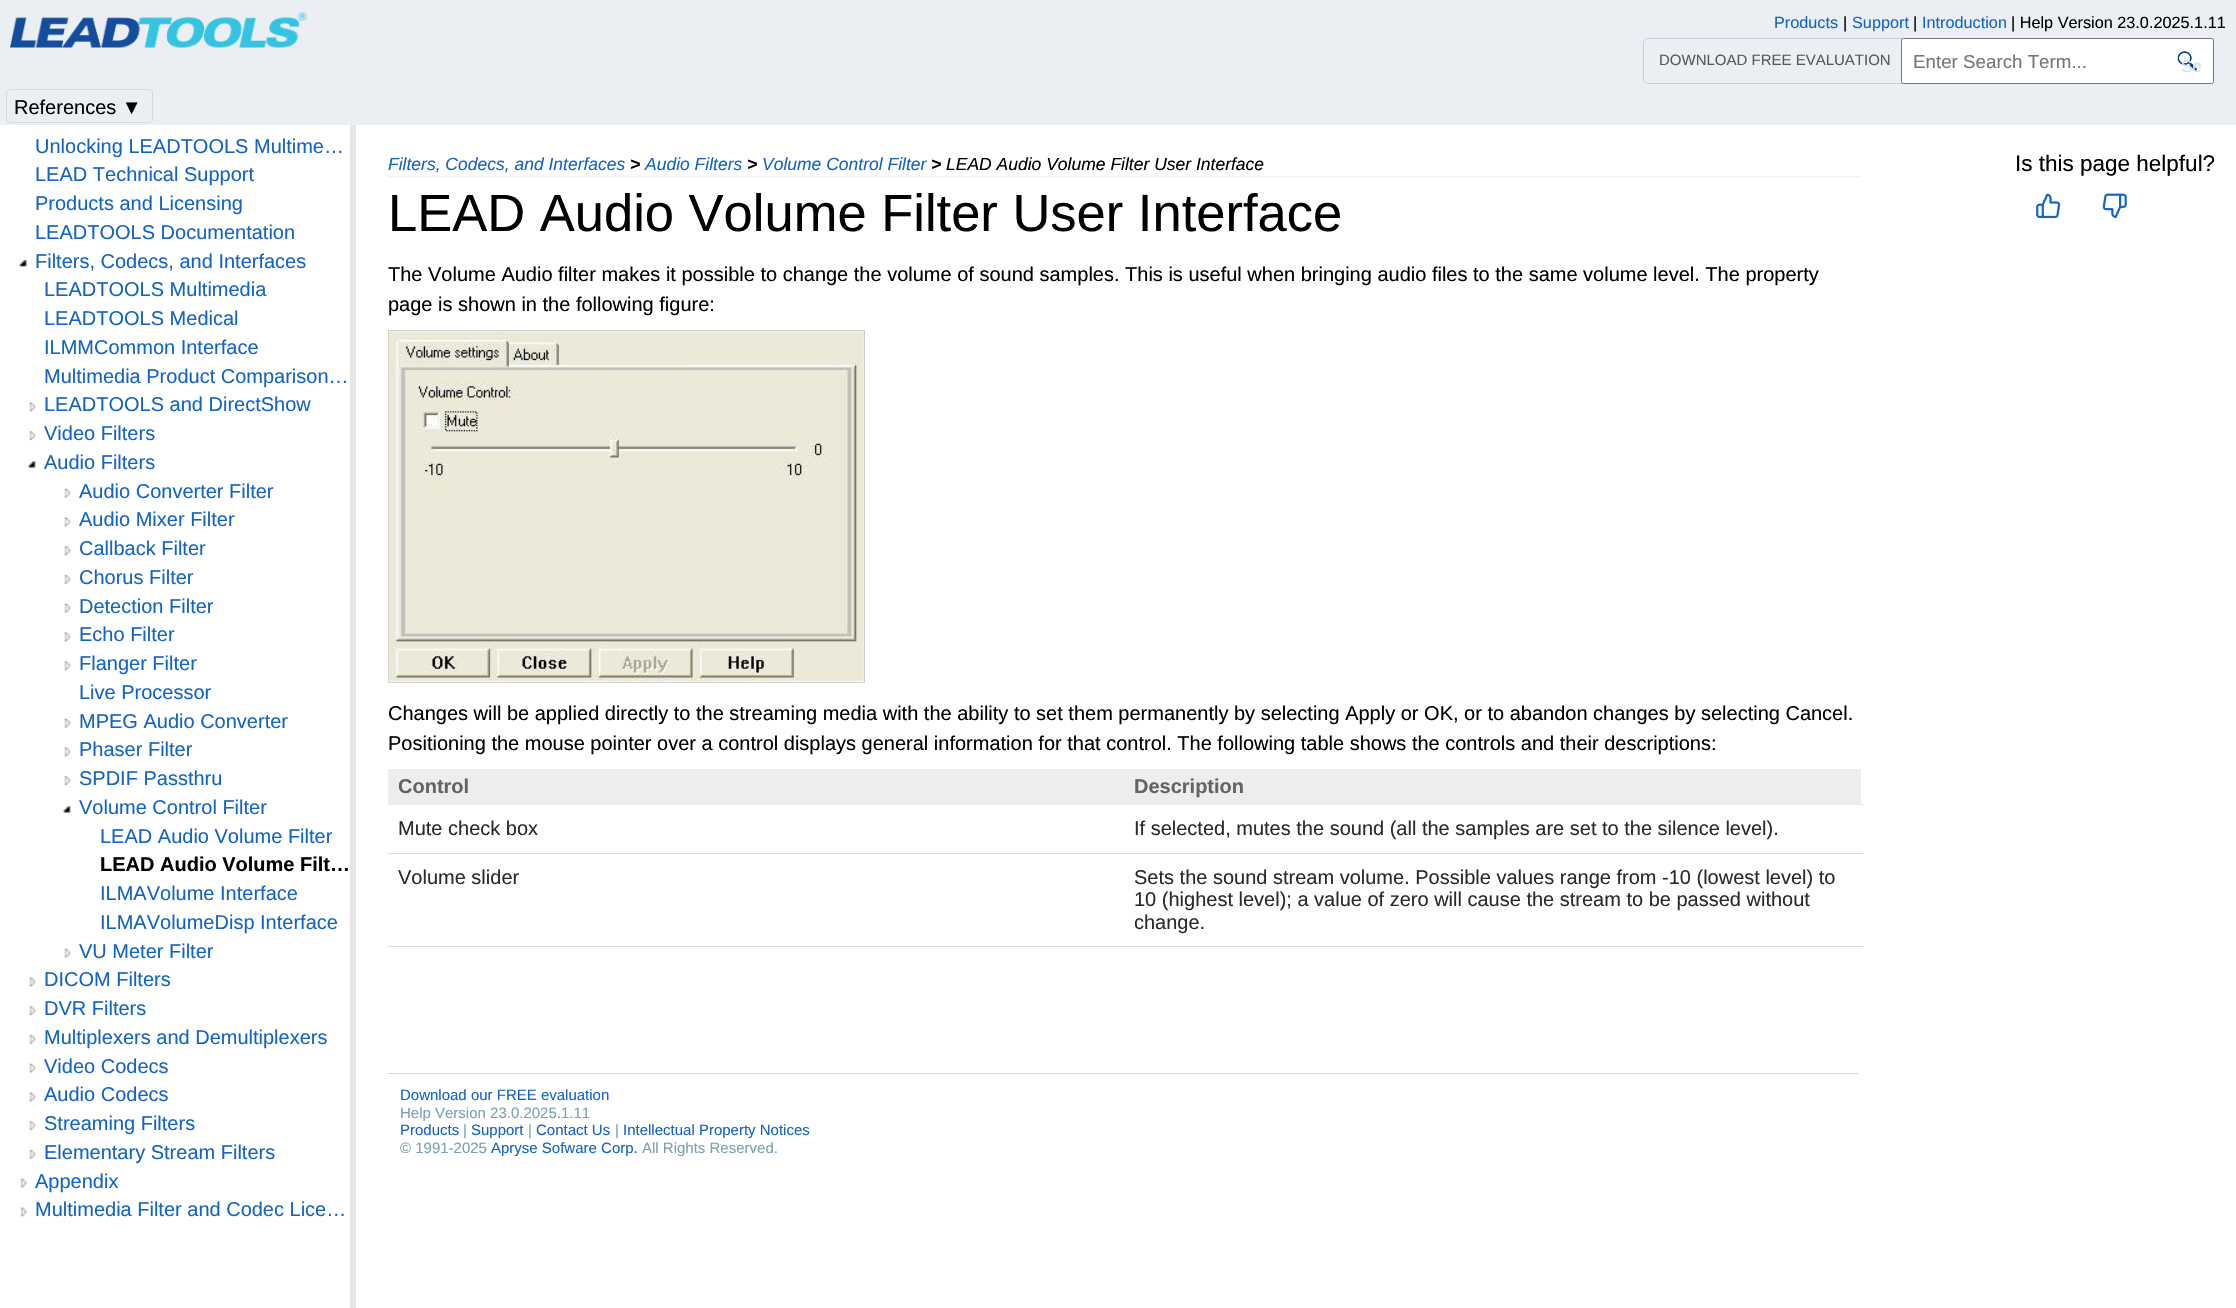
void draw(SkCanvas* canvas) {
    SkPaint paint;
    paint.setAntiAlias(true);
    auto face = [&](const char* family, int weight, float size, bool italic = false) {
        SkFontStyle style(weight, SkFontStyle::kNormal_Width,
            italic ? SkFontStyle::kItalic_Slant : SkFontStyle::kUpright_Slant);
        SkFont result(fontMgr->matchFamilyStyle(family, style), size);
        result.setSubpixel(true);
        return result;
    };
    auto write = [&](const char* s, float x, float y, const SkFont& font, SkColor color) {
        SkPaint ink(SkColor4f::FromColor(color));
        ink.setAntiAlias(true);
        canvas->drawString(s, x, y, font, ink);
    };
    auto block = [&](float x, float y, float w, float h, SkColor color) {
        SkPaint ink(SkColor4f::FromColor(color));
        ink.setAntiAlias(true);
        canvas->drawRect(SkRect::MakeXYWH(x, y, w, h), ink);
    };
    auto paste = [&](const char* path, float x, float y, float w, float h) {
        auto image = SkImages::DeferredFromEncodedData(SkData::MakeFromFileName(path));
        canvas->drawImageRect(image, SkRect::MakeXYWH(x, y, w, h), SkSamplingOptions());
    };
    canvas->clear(SK_ColorWHITE);
    block(0, 0, 2236, 125, SkColorSetRGB(235, 238, 243));
    paste("pic1.png", 10, 12, 297, 36);
    auto kFont1 = face("Liberation Sans", 400, 16.25f);
    write("Products", 1774, 28, kFont1, SkColorSetRGB(19, 100, 196));
    write("|", 1843, 28, kFont1, SK_ColorBLACK);
    write("Support", 1852, 28, kFont1, SkColorSetRGB(19, 100, 196));
    write("|", 1913, 28, kFont1, SK_ColorBLACK);
    write("Introduction", 1922, 28, kFont1, SkColorSetRGB(19, 100, 196));
    write("| Help Version 23.0.2025.1.11", 2011, 28, kFont1, SK_ColorBLACK);
    paint.setStyle(SkPaint::kStroke_Style);
    paint.setStrokeWidth(1);
    paint.setColor(SkColorSetRGB(192, 206, 225));
    canvas->drawRoundRect(SkRect::MakeXYWH(1643.5f, 38.5f, 264, 45), 4.5f, 4.5f, paint);
    auto kFont2 = face("Liberation Sans", 400, 15);
    write("DOWNLOAD FREE EVALUATION", 1659, 65, kFont2, SkColorSetRGB(88, 88, 88));
    paint.setStyle(SkPaint::kFill_Style);
    paint.setColor(SK_ColorWHITE);
    canvas->drawRoundRect(SkRect::MakeXYWH(1901.5f, 38.5f, 312, 45), 2, 2, paint);
    paint.setStyle(SkPaint::kStroke_Style);
    paint.setColor(SkColorSetRGB(118, 118, 118));
    canvas->drawRoundRect(SkRect::MakeXYWH(1901.5f, 38.5f, 312, 45), 2, 2, paint);
    auto kFont3 = face("Liberation Sans", 400, 18.75f);
    write("Enter Search Term...", 1913, 68, kFont3, SkColorSetRGB(117, 117, 117));
    paste("pic2.png", 2177, 51, 20, 20);
    auto kFont4 = face("Liberation Sans", 400, 17);
    write("Se", 2181, 72, kFont4, SkColorSetRGB(214, 224, 236));
    paint.setColor(SkColorSetRGB(214, 216, 220));
    canvas->drawRoundRect(SkRect::MakeXYWH(6.5f, 89.5f, 146, 33), 3.5f, 3.5f, paint);
    auto kFont5 = face("Liberation Sans", 400, 20);
    write("References ▼", 14, 114, kFont5, SK_ColorBLACK);
    block(350, 125, 6, 1183, SkColorSetRGB(230, 230, 230));
    write("Unlocking LEADTOOLS Multime…", 35, 153, kFont5, SkColorSetRGB(19, 100, 196));
    write("LEAD Technical Support", 35, 181, kFont5, SkColorSetRGB(19, 100, 196));
    write("Products and Licensing", 35, 210, kFont5, SkColorSetRGB(19, 100, 196));
    write("LEADTOOLS Documentation", 35, 239, kFont5, SkColorSetRGB(19, 100, 196));
    paste("pic3.png", 19, 259, 8, 8);
    write("Filters, Codecs, and Interfaces", 35, 268, kFont5, SkColorSetRGB(19, 100, 196));
    write("LEADTOOLS Multimedia", 44, 296, kFont5, SkColorSetRGB(19, 100, 196));
    write("LEADTOOLS Medical", 44, 325, kFont5, SkColorSetRGB(19, 100, 196));
    write("ILMMCommon Interface", 44, 354, kFont5, SkColorSetRGB(19, 100, 196));
    write("Multimedia Product Comparison…", 44, 383, kFont5, SkColorSetRGB(19, 100, 196));
    paste("pic4.png", 29, 402, 7, 10);
    write("LEADTOOLS and DirectShow", 44, 411, kFont5, SkColorSetRGB(19, 100, 196));
    paste("pic5.png", 29, 431, 7, 10);
    write("Video Filters", 44, 440, kFont5, SkColorSetRGB(19, 100, 196));
    paste("pic6.png", 28, 461, 8, 7);
    write("Audio Filters", 44, 469, kFont5, SkColorSetRGB(19, 100, 196));
    paste("pic7.png", 64, 488, 7, 10);
    write("Audio Converter Filter", 79, 498, kFont5, SkColorSetRGB(19, 100, 196));
    paste("pic4.png", 64, 517, 7, 10);
    write("Audio Mixer Filter", 79, 526, kFont5, SkColorSetRGB(19, 100, 196));
    paste("pic5.png", 64, 546, 7, 10);
    write("Callback Filter", 79, 555, kFont5, SkColorSetRGB(19, 100, 196));
    paste("pic8.png", 64, 574, 7, 10);
    write("Chorus Filter", 79, 584, kFont5, SkColorSetRGB(19, 100, 196));
    paste("pic7.png", 64, 603, 7, 10);
    write("Detection Filter", 79, 613, kFont5, SkColorSetRGB(19, 100, 196));
    paste("pic4.png", 64, 632, 7, 10);
    write("Echo Filter", 79, 641, kFont5, SkColorSetRGB(19, 100, 196));
    paste("pic5.png", 64, 661, 7, 10);
    write("Flanger Filter", 79, 670, kFont5, SkColorSetRGB(19, 100, 196));
    write("Live Processor", 79, 699, kFont5, SkColorSetRGB(19, 100, 196));
    paste("pic7.png", 64, 718, 7, 10);
    write("MPEG Audio Converter", 79, 728, kFont5, SkColorSetRGB(19, 100, 196));
    paste("pic4.png", 64, 747, 7, 10);
    write("Phaser Filter", 79, 756, kFont5, SkColorSetRGB(19, 100, 196));
    paste("pic5.png", 64, 776, 7, 10);
    write("SPDIF Passthru", 79, 785, kFont5, SkColorSetRGB(19, 100, 196));
    paste("pic6.png", 63, 806, 8, 7);
    write("Volume Control Filter", 79, 814, kFont5, SkColorSetRGB(19, 100, 196));
    write("LEAD Audio Volume Filter", 100, 843, kFont5, SkColorSetRGB(19, 100, 196));
    auto kFont6 = face("Liberation Sans", 700, 20);
    write("LEAD Audio Volume Filt…", 100, 871, kFont6, SK_ColorBLACK);
    write("ILMAVolume Interface", 100, 900, kFont5, SkColorSetRGB(19, 100, 196));
    write("ILMAVolumeDisp Interface", 100, 929, kFont5, SkColorSetRGB(19, 100, 196));
    paste("pic7.png", 64, 948, 7, 10);
    write("VU Meter Filter", 79, 958, kFont5, SkColorSetRGB(19, 100, 196));
    paste("pic4.png", 29, 977, 7, 10);
    write("DICOM Filters", 44, 986, kFont5, SkColorSetRGB(19, 100, 196));
    paste("pic5.png", 29, 1006, 7, 10);
    write("DVR Filters", 44, 1015, kFont5, SkColorSetRGB(19, 100, 196));
    paste("pic8.png", 29, 1034, 7, 10);
    write("Multiplexers and Demultiplexers", 44, 1044, kFont5, SkColorSetRGB(19, 100, 196));
    paste("pic7.png", 29, 1063, 7, 10);
    write("Video Codecs", 44, 1073, kFont5, SkColorSetRGB(19, 100, 196));
    paste("pic4.png", 29, 1092, 7, 10);
    write("Audio Codecs", 44, 1101, kFont5, SkColorSetRGB(19, 100, 196));
    paste("pic5.png", 29, 1121, 7, 10);
    write("Streaming Filters", 44, 1130, kFont5, SkColorSetRGB(19, 100, 196));
    paste("pic8.png", 29, 1149, 7, 10);
    write("Elementary Stream Filters", 44, 1159, kFont5, SkColorSetRGB(19, 100, 196));
    paste("pic9.png", 20, 1178, 7, 10);
    write("Appendix", 35, 1188, kFont5, SkColorSetRGB(19, 100, 196));
    paste("pic10.png", 20, 1207, 7, 10);
    write("Multimedia Filter and Codec Lice…", 35, 1216, kFont5, SkColorSetRGB(19, 100, 196));
    block(388, 176, 1473, 1, SkColorSetRGB(241, 241, 241));
    auto kFont7 = face("Liberation Sans", 400, 17.5f, true);
    write("Filters, Codecs, and Interfaces", 388, 170, kFont7, SkColorSetRGB(19, 100, 196));
    auto kFont8 = face("Liberation Sans", 700, 17.5f, true);
    write(">", 630, 170, kFont8, SK_ColorBLACK);
    write("Audio Filters", 645, 170, kFont7, SkColorSetRGB(19, 100, 196));
    write(">", 747, 170, kFont8, SK_ColorBLACK);
    write("Volume Control Filter", 762, 170, kFont7, SkColorSetRGB(19, 100, 196));
    write(">", 931, 170, kFont8, SK_ColorBLACK);
    write("LEAD Audio Volume Filter User Interface", 946, 170, kFont7, SK_ColorBLACK);
    auto kFont9 = face("Liberation Sans", 400, 22.5f);
    write("Is this page helpful?", 2015, 171, kFont9, SK_ColorBLACK);
    paste("pic11.png", 2036, 193, 25, 26);
    paste("pic12.png", 2102, 193, 25, 25);
    auto kFont10 = face("Liberation Sans", 400, 52.5f);
    write("LEAD Audio Volume Filter User Interface", 388, 231, kFont10, SK_ColorBLACK);
    write("The Volume Audio filter makes it possible to change the volume of sound samples. This is useful when bringing audio files to the same volume level. The property", 388, 281, kFont5, SK_ColorBLACK);
    write("page is shown in the following figure:", 388, 311, kFont5, SK_ColorBLACK);
    paint.setColor(SkColorSetRGB(206, 206, 206));
    canvas->drawRect(SkRect::MakeXYWH(388.5f, 330.5f, 476, 352), paint);
    paste("pic13.png", 388, 331, 476, 351);
    write("Changes will be applied directly to the streaming media with the ability to set them permanently by selecting Apply or OK, or to abandon changes by selecting Cancel.", 388, 720, kFont5, SK_ColorBLACK);
    write("Positioning the mouse pointer over a control displays general information for that control. The following table shows the controls and their descriptions:", 388, 750, kFont5, SK_ColorBLACK);
    block(388, 769, 1473, 36, SkColorSetRGB(237, 237, 237));
    write("Control", 398, 793, kFont6, SkColorSetRGB(99, 99, 99));
    block(1861, 804, 2, 1, SkColorSetRGB(219, 219, 219));
    write("Description", 1134, 793, kFont6, SkColorSetRGB(99, 99, 99));
    write("Mute check box", 398, 835, kFont5, SkColorSetRGB(42, 42, 42));
    block(388, 853, 1475, 1, SkColorSetRGB(219, 219, 219));
    write("If selected, mutes the sound (all the samples are set to the silence level).", 1134, 835, kFont5, SkColorSetRGB(42, 42, 42));
    write("Volume slider", 398, 884, kFont5, SkColorSetRGB(42, 42, 42));
    block(388, 946, 1475, 1, SkColorSetRGB(219, 219, 219));
    write("Sets the sound stream volume. Possible values range from -10 (lowest level) to", 1134, 884, kFont5, SkColorSetRGB(42, 42, 42));
    write("10 (highest level); a value of zero will cause the stream to be passed without", 1134, 906, kFont5, SkColorSetRGB(42, 42, 42));
    write("change.", 1134, 929, kFont5, SkColorSetRGB(42, 42, 42));
    block(388, 1073, 1471, 1, SkColorSetRGB(213, 216, 220));
    write("Download our FREE evaluation", 400, 1100, kFont2, SkColorSetRGB(19, 100, 196));
    write("Help Version 23.0.2025.1.11", 400, 1118, kFont2, SkColorSetRGB(123, 160, 178));
    write("Products", 400, 1135, kFont2, SkColorSetRGB(19, 100, 196));
    write("|", 463, 1135, kFont2, SkColorSetRGB(123, 160, 178));
    write("Support", 471, 1135, kFont2, SkColorSetRGB(19, 100, 196));
    write("|", 528, 1135, kFont2, SkColorSetRGB(123, 160, 178));
    write("Contact Us", 536, 1135, kFont2, SkColorSetRGB(19, 100, 196));
    write("|", 615, 1135, kFont2, SkColorSetRGB(123, 160, 178));
    write("Intellectual Property Notices", 623, 1135, kFont2, SkColorSetRGB(19, 100, 196));
    write("© 1991-2025", 400, 1153, kFont2, SkColorSetRGB(123, 160, 178));
    write("Apryse Sofware Corp.", 491, 1153, kFont2, SkColorSetRGB(19, 100, 196));
    write("All Rights Reserved.", 642, 1153, kFont2, SkColorSetRGB(123, 160, 178));
}
